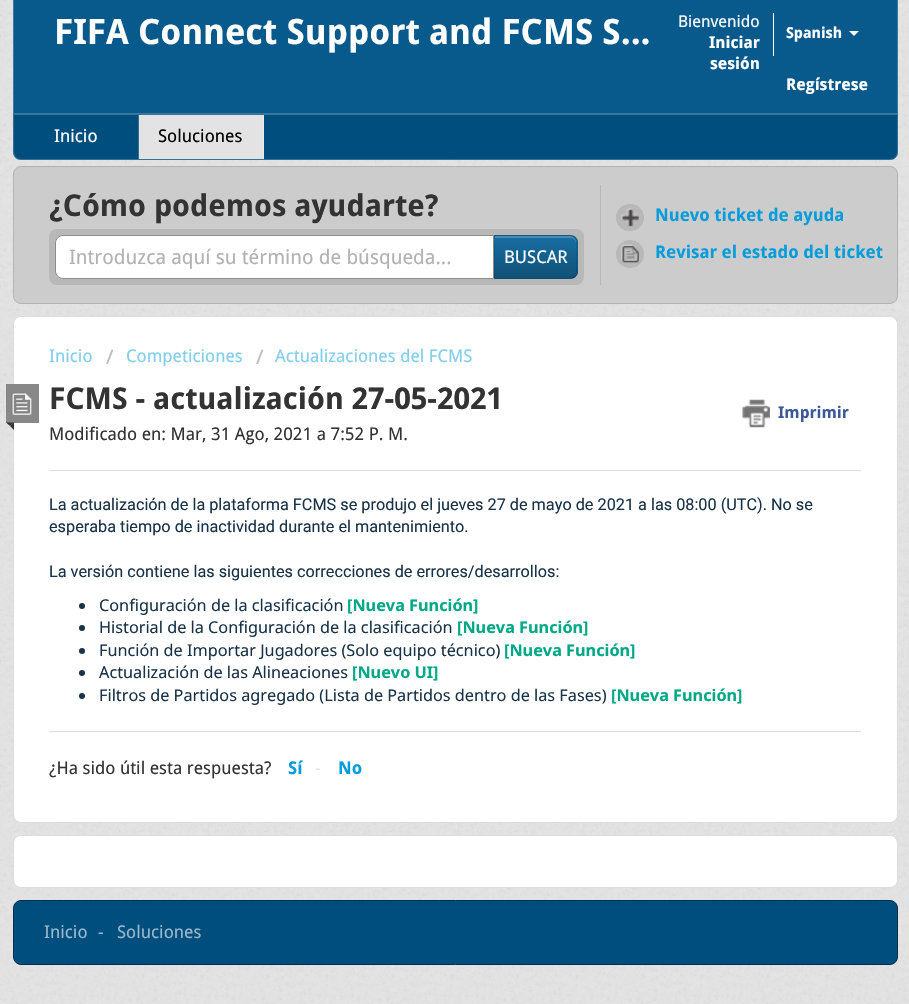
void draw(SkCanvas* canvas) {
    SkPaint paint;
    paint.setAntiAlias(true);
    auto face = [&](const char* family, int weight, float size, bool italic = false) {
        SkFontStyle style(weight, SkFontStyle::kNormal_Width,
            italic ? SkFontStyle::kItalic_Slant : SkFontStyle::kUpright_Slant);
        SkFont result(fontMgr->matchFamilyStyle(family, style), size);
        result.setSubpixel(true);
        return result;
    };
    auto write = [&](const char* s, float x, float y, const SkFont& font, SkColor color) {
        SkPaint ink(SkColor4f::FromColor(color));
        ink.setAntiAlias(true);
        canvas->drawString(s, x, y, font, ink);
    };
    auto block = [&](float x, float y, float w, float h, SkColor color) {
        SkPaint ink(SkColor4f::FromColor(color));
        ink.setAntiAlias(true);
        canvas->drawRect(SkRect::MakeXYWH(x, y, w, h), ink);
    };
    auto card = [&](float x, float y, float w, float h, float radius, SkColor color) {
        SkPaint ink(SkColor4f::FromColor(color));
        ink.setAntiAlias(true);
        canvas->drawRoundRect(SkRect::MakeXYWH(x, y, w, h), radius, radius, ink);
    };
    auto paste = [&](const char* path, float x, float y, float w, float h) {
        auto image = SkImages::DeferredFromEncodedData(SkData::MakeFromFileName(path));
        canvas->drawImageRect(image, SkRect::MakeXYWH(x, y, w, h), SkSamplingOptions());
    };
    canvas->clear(SkColorSetRGB(227, 227, 227));
    paste("pic1.png", 0, 0, 909, 1004);
    paint.setColor(SkColorSetRGB(8, 90, 140));
    canvas->drawRect(SkRect::MakeXYWH(13.5f, -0.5f, 884, 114), paint);
    paint.setStyle(SkPaint::kStroke_Style);
    paint.setStrokeWidth(1);
    paint.setColor(SkColorSetRGB(57, 123, 163));
    canvas->drawRect(SkRect::MakeXYWH(13.5f, -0.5f, 884, 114), paint);
    auto kFont1 = face("Droid Sans", 700, 35);
    write("FIFA Connect Support and FCMS S...", 54, 44, kFont1, SK_ColorWHITE);
    auto kFont2 = face("Droid Sans", 400, 16.25f);
    write("Bienvenido", 678, 27, kFont2, SK_ColorWHITE);
    auto kFont3 = face("Droid Sans", 700, 16.25f);
    write("Iniciar", 709, 48, kFont3, SK_ColorWHITE);
    block(773, 13, 1, 43, SK_ColorWHITE);
    auto kFont4 = face("Droid Sans", 700, 15);
    write("Spanish", 786, 38, kFont4, SK_ColorWHITE);
    paint.setStyle(SkPaint::kFill_Style);
    paint.setColor(SK_ColorWHITE);
    canvas->drawPath(SkPathBuilder().moveTo(849, 31).lineTo(859, 31).lineTo(854, 36).close().detach(), paint);
    write("sesión", 710, 69, kFont3, SK_ColorWHITE);
    write("Regístrese", 786, 90, kFont3, SK_ColorWHITE);
    paint.setColor(SkColorSetRGB(0, 78, 126));
    canvas->drawPath(SkPathBuilder().moveTo(13, 114).lineTo(898, 114).lineTo(898, 152).cubicTo(898, 156.5f, 894.5f, 160, 890, 160).lineTo(21, 160).cubicTo(16.5f, 160, 13, 156.5f, 13, 152).close().detach(), paint);
    paint.setStyle(SkPaint::kStroke_Style);
    paint.setColor(SkColorSetARGB(51, 255, 255, 255));
    canvas->drawPath(SkPathBuilder().moveTo(13.5f, 114.5f).lineTo(897.5f, 114.5f).lineTo(897.5f, 152).cubicTo(897.5f, 156, 894, 159.5f, 890, 159.5f).lineTo(21, 159.5f).cubicTo(17, 159.5f, 13.5f, 156, 13.5f, 152).close().detach(), paint);
    block(138, 115, 1, 44, SkColorSetRGB(51, 113, 152));
    auto kFont5 = face("Droid Sans", 400, 17.5f);
    write("Inicio", 54, 142, kFont5, SK_ColorWHITE);
    block(139, 115, 124, 44, SkColorSetRGB(227, 227, 227));
    block(263, 115, 1, 44, SkColorSetRGB(233, 233, 233));
    write("Soluciones", 158, 142, kFont5, SK_ColorBLACK);
    paint.setStyle(SkPaint::kFill_Style);
    paint.setColor(SkColorSetRGB(204, 204, 204));
    canvas->drawRoundRect(SkRect::MakeXYWH(13.5f, 166.5f, 884, 137), 7.5f, 7.5f, paint);
    paint.setStyle(SkPaint::kStroke_Style);
    paint.setColor(SkColorSetRGB(179, 179, 179));
    canvas->drawRoundRect(SkRect::MakeXYWH(13.5f, 166.5f, 884, 137), 7.5f, 7.5f, paint);
    block(600, 185, 1, 100, SkColorSetRGB(184, 184, 184));
    auto kFont6 = face("Droid Sans", 700, 30);
    write("¿Cómo podemos ayudarte?", 49, 216, kFont6, SkColorSetRGB(51, 51, 51));
    card(49, 229, 535, 56, 8, SkColorSetRGB(184, 184, 184));
    paint.setStyle(SkPaint::kFill_Style);
    paint.setColor(SK_ColorWHITE);
    canvas->drawPath(SkPathBuilder().moveTo(63, 235.5f).lineTo(493.5f, 235.5f).lineTo(493.5f, 278.5f).lineTo(63, 278.5f).cubicTo(59, 278.5f, 55.5f, 275, 55.5f, 271).lineTo(55.5f, 243).cubicTo(55.5f, 239, 59, 235.5f, 63, 235.5f).close().detach(), paint);
    paint.setStyle(SkPaint::kStroke_Style);
    paint.setColor(SkColorSetRGB(140, 140, 140));
    canvas->drawPath(SkPathBuilder().moveTo(63, 235.5f).lineTo(493.5f, 235.5f).lineTo(493.5f, 278.5f).lineTo(63, 278.5f).cubicTo(59, 278.5f, 55.5f, 275, 55.5f, 271).lineTo(55.5f, 243).cubicTo(55.5f, 239, 59, 235.5f, 63, 235.5f).close().detach(), paint);
    auto kFont7 = face("Droid Sans", 400, 20);
    write("Introduzca aquí su término de búsqueda...", 69, 264, kFont7, SkColorSetRGB(178, 178, 178));
    paint.setStyle(SkPaint::kFill_Style);
    paint.setColor(SkColorSetRGB(21, 99, 146));
    canvas->drawPath(SkPathBuilder().moveTo(494, 235).lineTo(570, 235).cubicTo(574.5f, 235, 578, 238.5f, 578, 243).lineTo(578, 271).cubicTo(578, 275.5f, 574.5f, 279, 570, 279).lineTo(494, 279).close().detach(), paint);
    canvas->save();
    canvas->clipPath(SkPathBuilder().moveTo(494, 235).lineTo(570, 235).cubicTo(574.5f, 235, 578, 238.5f, 578, 243).lineTo(578, 271).cubicTo(578, 275.5f, 574.5f, 279, 570, 279).lineTo(494, 279).close().detach(), true);
    {
        const SkColor colors[] = {SkColorSetRGB(23, 111, 164), SkColorSetRGB(17, 81, 119)};
        const float stops[] = {0, 1};
        const SkPoint ends[] = {{536, 236}, {536, 278}};
        paint.setShader(SkGradientShader::MakeLinear(ends, colors, stops, 2, SkTileMode::kClamp));
        paint.setAlpha(255);
    }
    canvas->drawRect(SkRect::MakeXYWH(494, 236, 84, 42), paint);
    canvas->restore();
    paint.setShader(nullptr);
    paint.setColor(SkColorSetARGB(51, 255, 255, 255));
    canvas->drawPath(SkPathBuilder().moveTo(495, 238).lineTo(570, 238).cubicTo(573, 238, 576, 240, 576, 244).lineTo(576, 242).cubicTo(576, 239, 573, 236, 570, 236).lineTo(495, 236).close().detach(), paint);
    paint.setColor(SkColorSetARGB(26, 0, 0, 0));
    canvas->drawPath(SkPathBuilder().moveTo(494, 235).lineTo(495, 236).lineTo(571, 236).lineTo(574, 238).lineTo(576, 237).cubicTo(574, 236, 572, 235, 570, 235).close().detach(), paint);
    canvas->drawPath(SkPathBuilder().moveTo(577.5f, 273.5f).cubicTo(577, 274.5f, 576.5f, 275.5f, 575.5f, 276.5f).lineTo(574.5f, 275.5f).cubicTo(575.5f, 274.5f, 576, 273, 576, 271).lineTo(576, 242).cubicTo(576, 240.5f, 575.5f, 239, 574.5f, 238).lineTo(575.5f, 237).lineTo(577.5f, 239.5f).close().detach(), paint);
    paint.setColor(SkColorSetARGB(64, 0, 0, 0));
    canvas->drawPath(SkPathBuilder().moveTo(494, 279).lineTo(495, 278).lineTo(571, 278).lineTo(574, 276).lineTo(575, 277).lineTo(572, 279).close().detach(), paint);
    paint.setColor(SkColorSetARGB(26, 0, 0, 0));
    canvas->drawPath(SkPathBuilder().moveTo(494, 235).lineTo(494, 278).lineTo(495, 278).lineTo(495, 236).close().detach(), paint);
    write("BUSCAR", 504, 263, kFont5, SK_ColorWHITE);
    card(616, 204, 28, 27, 13.5f, SkColorSetRGB(184, 184, 184));
    paste("pic2.png", 621, 208, 18, 19);
    auto kFont8 = face("Droid Sans", 700, 17.5f);
    write("Nuevo ticket de ayuda", 655, 221, kFont8, SkColorSetRGB(4, 156, 219));
    paint.setColor(SkColorSetRGB(184, 184, 184));
    canvas->drawCircle(630, 254, 14, paint);
    paste("pic3.png", 621, 244, 18, 19);
    write("Revisar el estado del ticket", 655, 258, kFont8, SkColorSetRGB(4, 156, 219));
    paint.setColor(SK_ColorWHITE);
    canvas->drawRoundRect(SkRect::MakeXYWH(13.5f, 316.5f, 884, 506), 7.5f, 7.5f, paint);
    paint.setStyle(SkPaint::kStroke_Style);
    paint.setColor(SkColorSetRGB(220, 220, 220));
    canvas->drawRoundRect(SkRect::MakeXYWH(13.5f, 316.5f, 884, 506), 7.5f, 7.5f, paint);
    write("Inicio", 49, 362, kFont5, SkColorSetRGB(130, 206, 237));
    write("/", 106, 364, kFont7, SkColorSetRGB(187, 187, 187));
    write("Competiciones", 126, 362, kFont5, SkColorSetRGB(130, 206, 237));
    write("/", 256, 364, kFont7, SkColorSetRGB(187, 187, 187));
    write("Actualizaciones del FCMS", 275, 362, kFont5, SkColorSetRGB(130, 206, 237));
    block(6, 384, 33, 39, SkColorSetRGB(136, 136, 136));
    paste("pic4.png", 11, 392, 21, 23);
    paint.setStyle(SkPaint::kFill_Style);
    paint.setColor(SkColorSetRGB(51, 51, 51));
    canvas->drawPath(SkPathBuilder().moveTo(6, 422.5f).lineTo(14, 422.5f).lineTo(10, 426).close().detach(), paint);
    canvas->drawPath(SkPathBuilder().moveTo(14, 422.5f).lineTo(14, 430).lineTo(10, 426).close().detach(), paint);
    write("FCMS - actualización 27-05-2021", 49, 409, kFont6, SkColorSetRGB(51, 51, 51));
    paste("pic5.png", 742, 399, 28, 29);
    write("Imprimir", 778, 418, kFont3, SkColorSetRGB(59, 89, 152));
    write("Modificado en: Mar, 31 Ago, 2021 a 7:52 P. M.", 49, 440, kFont5, SkColorSetRGB(51, 51, 51));
    block(49, 470, 812, 1, SkColorSetRGB(220, 220, 220));
    auto kFont9 = face("Roboto", 400, 16.25f);
    write("La actualización de la plataforma FCMS se produjo el jueves 27 de mayo de 2021 a las 08:00 (UTC). No se", 49, 510, kFont9, SkColorSetRGB(24, 50, 71));
    write("esperaba tiempo de inactividad durante el mantenimiento.", 49, 532, kFont9, SkColorSetRGB(24, 50, 71));
    write("La versión contiene las siguientes correcciones de errores/desarrollos:", 49, 577, kFont9, SkColorSetRGB(24, 50, 71));
    paint.setColor(SkColorSetRGB(24, 50, 71));
    canvas->drawCircle(82, 606, 3, paint);
    auto kFont10 = face("Noto Sans", 400, 16.25f);
    write("Configuración de la clasificación", 99, 611, kFont10, SkColorSetRGB(24, 50, 71));
    auto kFont11 = face("Noto Sans", 700, 16.25f);
    write("[Nueva Función]", 347, 611, kFont11, SkColorSetRGB(0, 168, 133));
    canvas->drawCircle(82, 628, 3, paint);
    write("Historial de la Configuración de la clasificación", 99, 633, kFont10, SkColorSetRGB(24, 50, 71));
    write("[Nueva Función]", 457, 633, kFont11, SkColorSetRGB(0, 168, 133));
    canvas->drawCircle(82, 651, 3, paint);
    write("Función de Importar Jugadores (Solo equipo técnico)", 99, 656, kFont10, SkColorSetRGB(24, 50, 71));
    write("[Nueva Función]", 504, 656, kFont11, SkColorSetRGB(0, 168, 133));
    canvas->drawCircle(82, 673, 3, paint);
    write("Actualización de las Alineaciones", 99, 678, kFont10, SkColorSetRGB(24, 50, 71));
    write("[Nuevo UI]", 352, 678, kFont11, SkColorSetRGB(0, 168, 133));
    canvas->drawCircle(82, 696, 3, paint);
    write("Filtros de Partidos agregado (Lista de Partidos dentro de las Fases)", 99, 701, kFont10, SkColorSetRGB(24, 50, 71));
    write("[Nueva Función]", 611, 701, kFont11, SkColorSetRGB(0, 168, 133));
    block(49, 731, 812, 1, SkColorSetRGB(220, 220, 220));
    write("¿Ha sido útil esta respuesta?", 49, 774, kFont5, SkColorSetRGB(51, 51, 51));
    write("Sí", 288, 774, kFont8, SkColorSetRGB(4, 156, 219));
    write("-", 315, 774, kFont5, SkColorSetRGB(229, 229, 229));
    write("No", 338, 774, kFont8, SkColorSetRGB(4, 156, 219));
    paint.setColor(SK_ColorWHITE);
    canvas->drawRoundRect(SkRect::MakeXYWH(13.5f, 835.5f, 884, 52), 7.5f, 7.5f, paint);
    paint.setStyle(SkPaint::kStroke_Style);
    paint.setColor(SkColorSetRGB(220, 220, 220));
    canvas->drawRoundRect(SkRect::MakeXYWH(13.5f, 835.5f, 884, 52), 7.5f, 7.5f, paint);
    paint.setStyle(SkPaint::kFill_Style);
    paint.setColor(SkColorSetRGB(0, 78, 126));
    canvas->drawRoundRect(SkRect::MakeXYWH(13.5f, 900.5f, 884, 64), 7.5f, 7.5f, paint);
    paint.setStyle(SkPaint::kStroke_Style);
    paint.setColor(SkColorSetRGB(0, 46, 75));
    canvas->drawRoundRect(SkRect::MakeXYWH(13.5f, 900.5f, 884, 64), 7.5f, 7.5f, paint);
    write("Inicio", 44, 938, kFont5, SkColorSetRGB(153, 184, 203));
    write("-", 98, 938, kFont5, SkColorSetRGB(153, 184, 203));
    write("Soluciones", 117, 938, kFont5, SkColorSetRGB(153, 184, 203));
}
